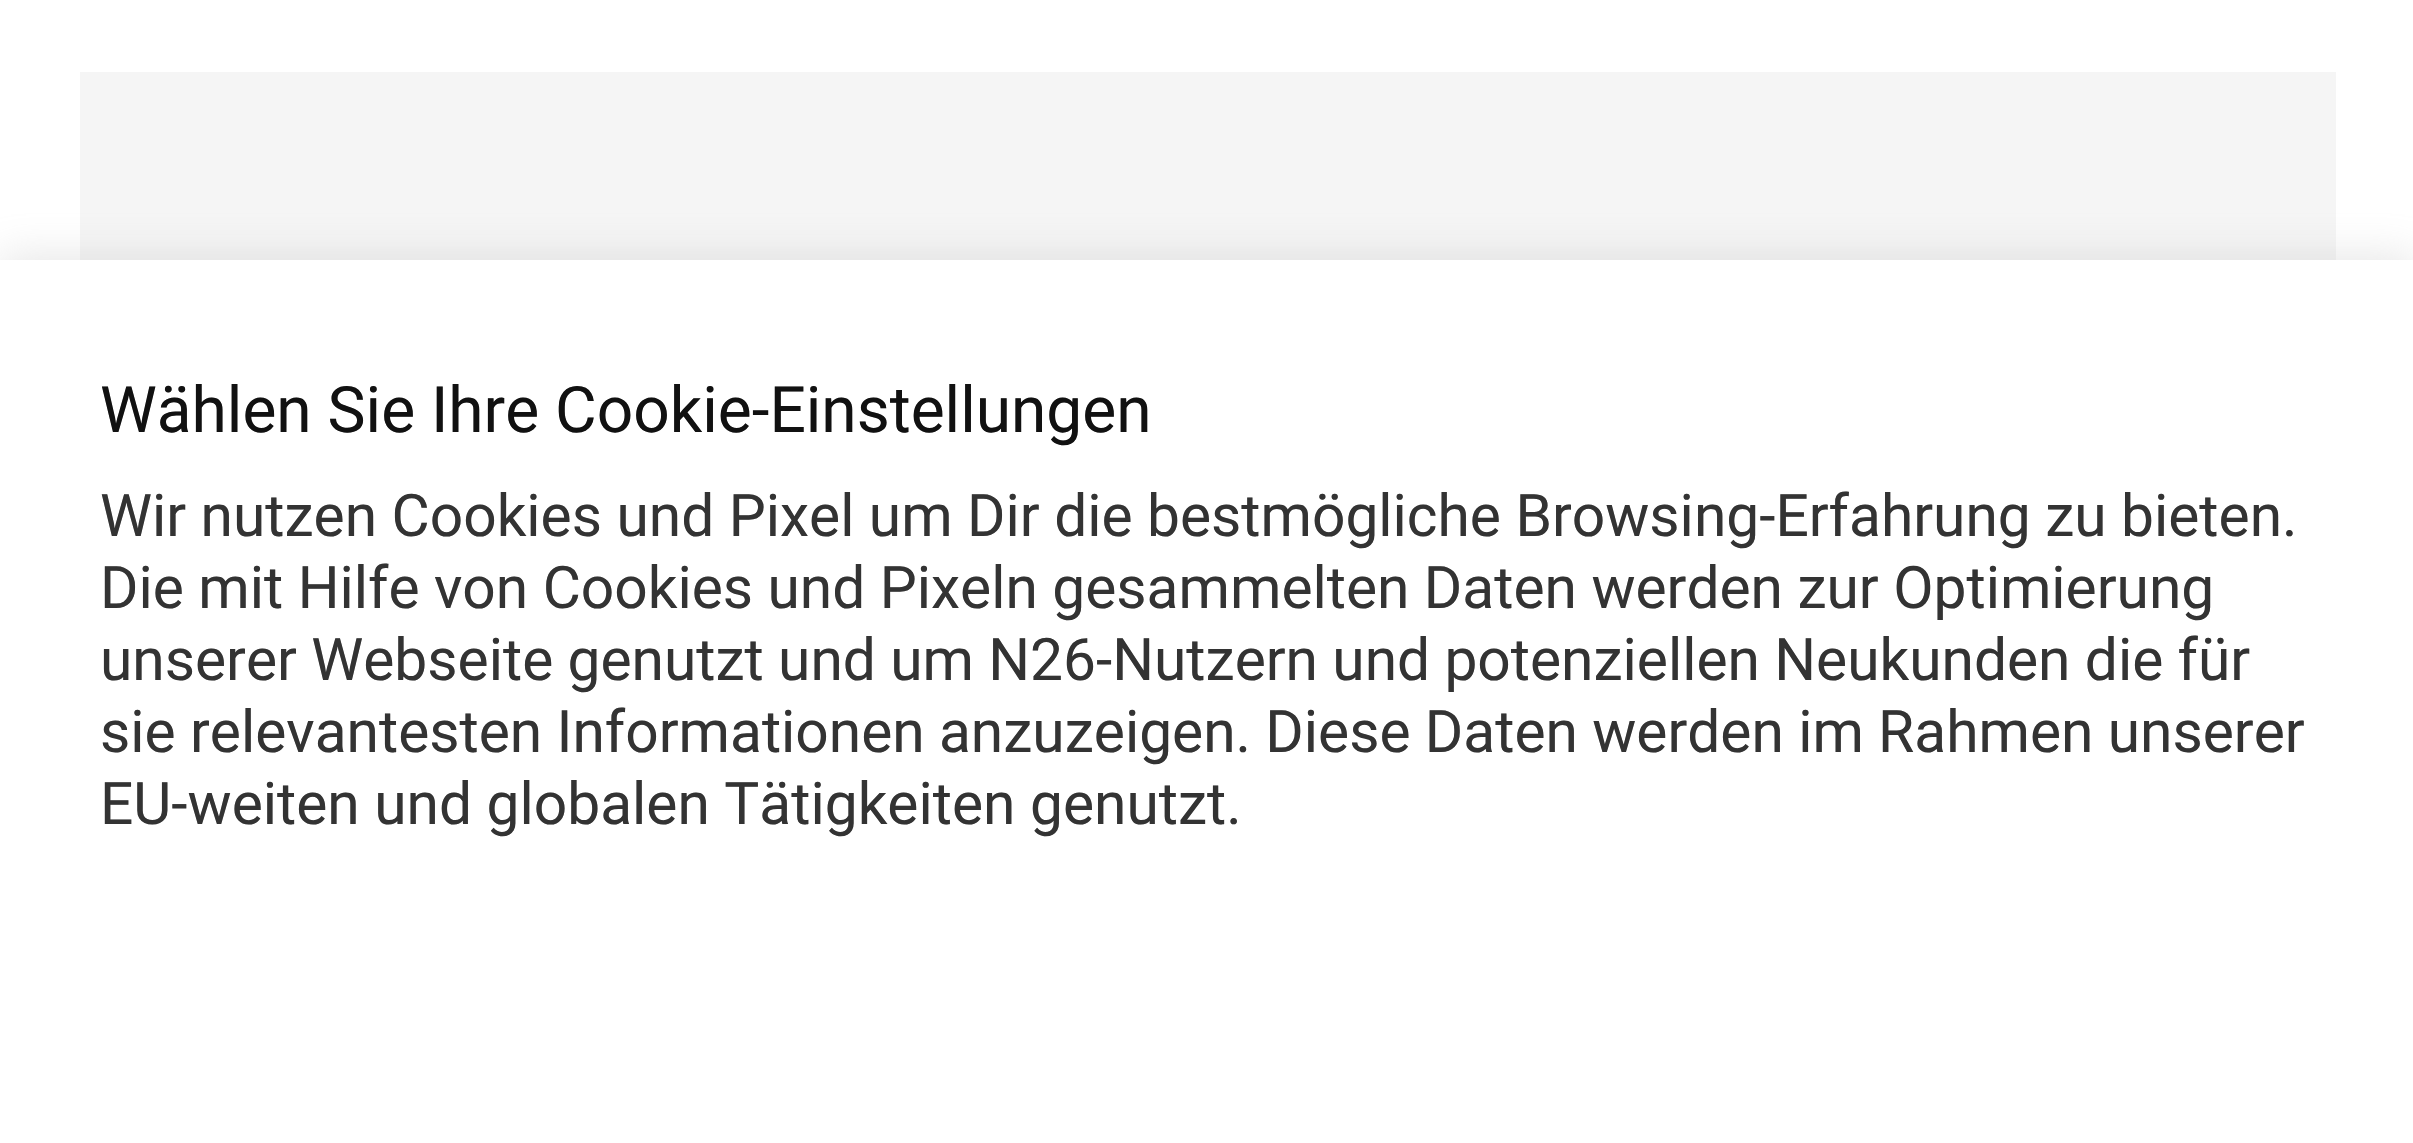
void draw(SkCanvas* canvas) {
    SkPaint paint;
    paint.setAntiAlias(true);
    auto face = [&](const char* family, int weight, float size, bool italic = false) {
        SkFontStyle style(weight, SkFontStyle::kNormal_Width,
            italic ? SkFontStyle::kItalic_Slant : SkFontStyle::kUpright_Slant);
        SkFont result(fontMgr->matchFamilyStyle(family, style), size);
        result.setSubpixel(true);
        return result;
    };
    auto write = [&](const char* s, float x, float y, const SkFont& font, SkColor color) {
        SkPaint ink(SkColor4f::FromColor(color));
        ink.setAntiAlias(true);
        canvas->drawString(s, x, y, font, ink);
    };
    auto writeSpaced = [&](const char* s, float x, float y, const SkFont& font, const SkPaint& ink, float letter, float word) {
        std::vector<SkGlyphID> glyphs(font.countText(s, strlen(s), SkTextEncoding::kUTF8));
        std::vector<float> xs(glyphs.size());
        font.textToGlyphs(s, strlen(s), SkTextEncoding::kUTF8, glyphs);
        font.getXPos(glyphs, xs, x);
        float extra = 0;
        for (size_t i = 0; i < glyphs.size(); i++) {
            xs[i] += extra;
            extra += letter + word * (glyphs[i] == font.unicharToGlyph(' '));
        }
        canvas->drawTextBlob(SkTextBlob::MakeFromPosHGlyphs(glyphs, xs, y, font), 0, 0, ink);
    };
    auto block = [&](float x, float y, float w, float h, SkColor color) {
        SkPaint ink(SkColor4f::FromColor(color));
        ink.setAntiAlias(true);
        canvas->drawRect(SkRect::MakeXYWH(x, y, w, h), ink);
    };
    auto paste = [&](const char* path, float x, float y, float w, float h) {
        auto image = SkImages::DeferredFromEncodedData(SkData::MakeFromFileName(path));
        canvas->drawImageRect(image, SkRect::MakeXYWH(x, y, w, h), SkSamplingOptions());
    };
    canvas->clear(SK_ColorWHITE);
    paste("pic1.png", 80, 72, 2256, 188);
    paint.setColor(SkColorSetARGB(77, 172, 171, 171));
    paint.setMaskFilter(SkMaskFilter::MakeBlur(kNormal_SkBlurStyle, 20));
    canvas->drawRect(SkRect::MakeXYWH(0, 256, 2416, 884), paint);
    paint.setMaskFilter(nullptr);
    block(0, 260, 2413, 883, SK_ColorWHITE);
    auto kFont1 = face("Roboto", 400, 64);
    write("Wählen Sie Ihre Cookie-Einstellungen", 100, 432, kFont1, SkColorSetRGB(17, 17, 17));
    auto kFont2 = face("Roboto", 400, 58.65f);
    paint.setColor(SkColorSetRGB(51, 51, 51));
    writeSpaced("Wir nutzen Cookies und Pixel um Dir die bestmögliche Browsing-Erfahrung zu bieten.", 100, 536, kFont2, paint, 0, -0.1f);
    writeSpaced("Die mit Hilfe von Cookies und Pixeln gesammelten Daten werden zur Optimierung", 100, 608, kFont2, paint, 0, -0.1f);
    writeSpaced("unserer Webseite genutzt und um N26-Nutzern und potenziellen Neukunden die für", 100, 680, kFont2, paint, 0, -0.25f);
    writeSpaced("sie relevantesten Informationen anzuzeigen. Diese Daten werden im Rahmen unserer", 100, 752, kFont2, paint, 0, -0.25f);
    write("EU-weiten und globalen Tätigkeiten genutzt.", 100, 824, kFont2, SkColorSetRGB(51, 51, 51));
}
